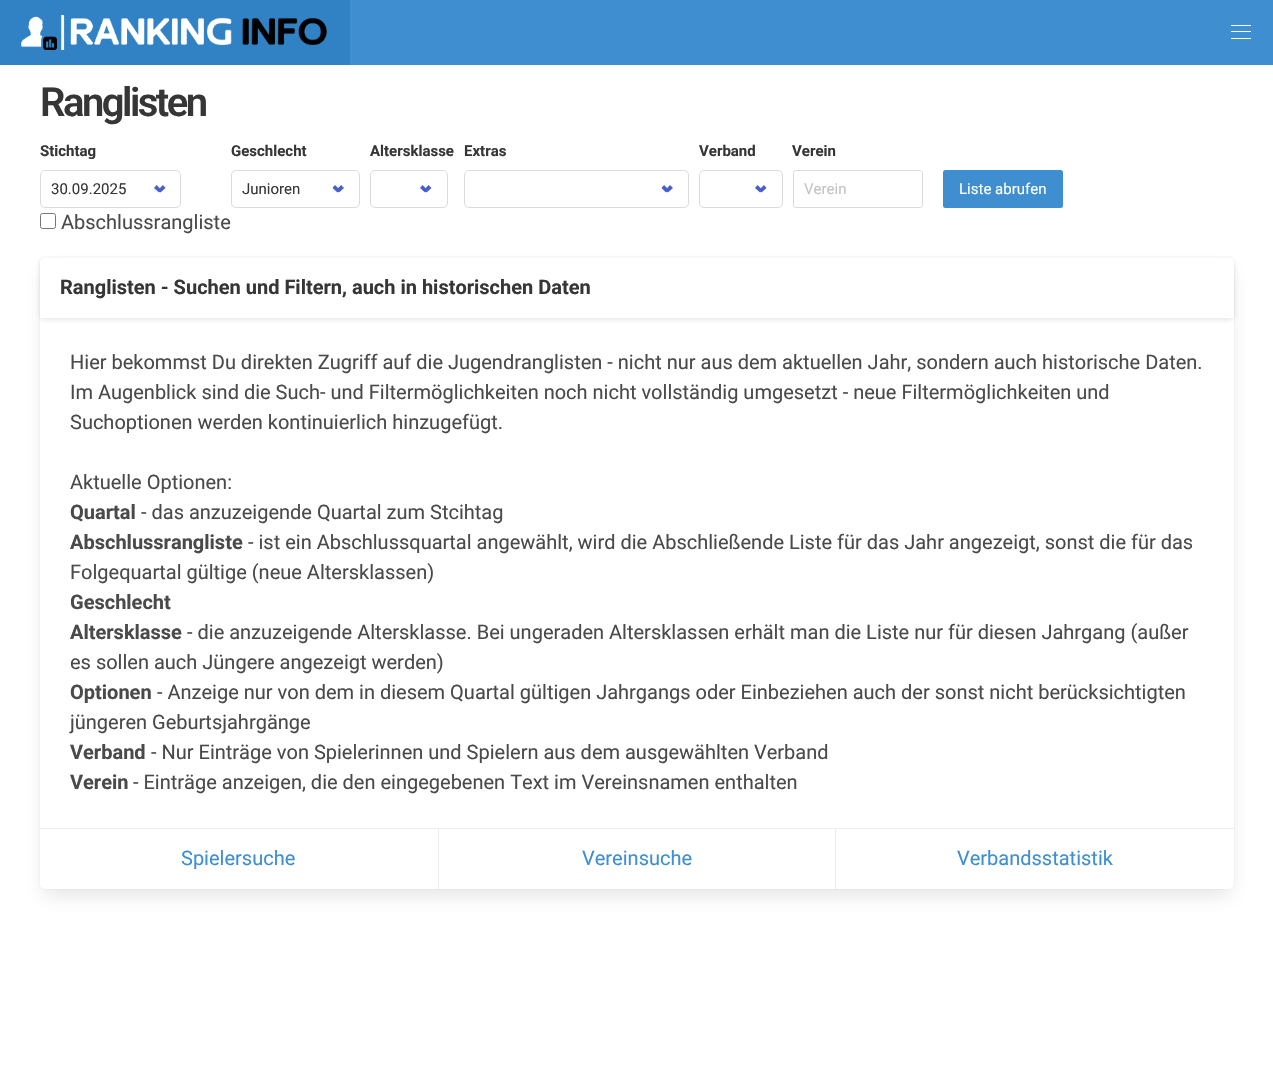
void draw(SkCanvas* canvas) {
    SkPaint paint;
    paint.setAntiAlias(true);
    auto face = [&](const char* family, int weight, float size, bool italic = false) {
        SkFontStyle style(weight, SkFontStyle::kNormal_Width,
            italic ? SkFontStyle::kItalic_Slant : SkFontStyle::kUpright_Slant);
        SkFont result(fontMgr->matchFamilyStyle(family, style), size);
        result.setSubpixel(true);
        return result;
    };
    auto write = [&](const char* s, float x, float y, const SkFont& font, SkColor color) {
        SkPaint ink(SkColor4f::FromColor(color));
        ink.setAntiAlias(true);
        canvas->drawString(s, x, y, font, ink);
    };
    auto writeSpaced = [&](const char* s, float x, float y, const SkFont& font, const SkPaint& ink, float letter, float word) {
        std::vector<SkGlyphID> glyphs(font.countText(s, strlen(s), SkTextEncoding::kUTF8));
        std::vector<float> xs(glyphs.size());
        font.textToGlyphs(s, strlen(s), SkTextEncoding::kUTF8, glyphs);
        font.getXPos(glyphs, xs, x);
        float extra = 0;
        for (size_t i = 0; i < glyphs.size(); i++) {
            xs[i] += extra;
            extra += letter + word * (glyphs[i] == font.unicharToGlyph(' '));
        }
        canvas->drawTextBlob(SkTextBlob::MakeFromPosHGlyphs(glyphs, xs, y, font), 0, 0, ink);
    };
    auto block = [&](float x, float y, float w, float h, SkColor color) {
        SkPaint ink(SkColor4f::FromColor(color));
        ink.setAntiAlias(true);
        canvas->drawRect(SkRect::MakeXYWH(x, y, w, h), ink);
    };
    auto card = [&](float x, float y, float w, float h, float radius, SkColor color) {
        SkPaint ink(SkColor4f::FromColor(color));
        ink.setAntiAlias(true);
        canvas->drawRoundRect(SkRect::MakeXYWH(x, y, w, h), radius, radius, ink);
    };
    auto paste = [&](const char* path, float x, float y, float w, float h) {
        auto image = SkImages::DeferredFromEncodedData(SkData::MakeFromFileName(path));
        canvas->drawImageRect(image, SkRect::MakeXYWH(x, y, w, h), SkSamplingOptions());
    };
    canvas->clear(SK_ColorWHITE);
    block(350, 0, 923, 65, SkColorSetRGB(62, 142, 208));
    block(0, 0, 350, 65, SkColorSetRGB(48, 130, 197));
    paste("pic1.png", 21, 15, 306, 35);
    block(1231, 25, 20, 1, SK_ColorWHITE);
    block(1231, 31, 20, 1, SK_ColorWHITE);
    block(1231, 38, 20, 1, SK_ColorWHITE);
    auto kFont1 = face("Roboto", 600, 40);
    paint.setColor(SkColorSetRGB(54, 54, 54));
    writeSpaced("Ranglisten", 40, 116, kFont1, paint, -2.5f, 0);
    auto kFont2 = face("Roboto", 700, 15);
    write("Stichtag", 40, 156, kFont2, SkColorSetRGB(54, 54, 54));
    paint.setStyle(SkPaint::kStroke_Style);
    paint.setStrokeWidth(1);
    paint.setColor(SkColorSetRGB(219, 219, 219));
    canvas->drawRoundRect(SkRect::MakeXYWH(40.5f, 170.5f, 140, 37), 4.5f, 4.5f, paint);
    auto kFont3 = face("Roboto", 400, 15);
    write("30.09.2025", 51, 194, kFont3, SkColorSetRGB(54, 54, 54));
    paint.setStyle(SkPaint::kFill_Style);
    paint.setColor(SkColorSetRGB(72, 95, 199));
    canvas->drawPath(SkPathBuilder().moveTo(158, 190).lineTo(163, 185).lineTo(165.5f, 188).lineTo(160.5f, 192.5f).close().detach(), paint);
    canvas->drawPath(SkPathBuilder().moveTo(154, 188).lineTo(156.5f, 185).lineTo(161.5f, 190).lineTo(159, 192.5f).close().detach(), paint);
    paint.setStyle(SkPaint::kStroke_Style);
    paint.setColor(SkColorSetRGB(118, 118, 118));
    canvas->drawRoundRect(SkRect::MakeXYWH(40.5f, 213.5f, 15, 15), 2, 2, paint);
    auto kFont4 = face("Roboto", 400, 20);
    write("Abschlussrangliste", 61, 229, kFont4, SkColorSetRGB(74, 74, 74));
    write("Geschlecht", 231, 156, kFont2, SkColorSetRGB(54, 54, 54));
    paint.setColor(SkColorSetRGB(219, 219, 219));
    canvas->drawRoundRect(SkRect::MakeXYWH(231.5f, 170.5f, 128, 37), 4.5f, 4.5f, paint);
    write("Junioren", 242, 194, kFont3, SkColorSetRGB(54, 54, 54));
    paint.setStyle(SkPaint::kFill_Style);
    paint.setColor(SkColorSetRGB(72, 95, 199));
    canvas->drawPath(SkPathBuilder().moveTo(336.5f, 190).lineTo(341, 185).lineTo(344, 188).lineTo(339, 192.5f).close().detach(), paint);
    canvas->drawPath(SkPathBuilder().moveTo(332.5f, 188).lineTo(335, 185).lineTo(340, 190).lineTo(337.5f, 192.5f).close().detach(), paint);
    write("Altersklasse", 370, 156, kFont2, SkColorSetRGB(54, 54, 54));
    paint.setStyle(SkPaint::kStroke_Style);
    paint.setColor(SkColorSetRGB(219, 219, 219));
    canvas->drawRoundRect(SkRect::MakeXYWH(370.5f, 170.5f, 77, 37), 4.5f, 4.5f, paint);
    paint.setStyle(SkPaint::kFill_Style);
    paint.setColor(SkColorSetRGB(72, 95, 199));
    canvas->drawPath(SkPathBuilder().moveTo(424, 190).lineTo(428.5f, 185).lineTo(431.5f, 188).lineTo(426.5f, 192.5f).close().detach(), paint);
    canvas->drawPath(SkPathBuilder().moveTo(420, 188).lineTo(422.5f, 185).lineTo(427.5f, 190).lineTo(425, 192.5f).close().detach(), paint);
    write("Extras", 464, 156, kFont2, SkColorSetRGB(54, 54, 54));
    paint.setStyle(SkPaint::kStroke_Style);
    paint.setColor(SkColorSetRGB(219, 219, 219));
    canvas->drawRoundRect(SkRect::MakeXYWH(464.5f, 170.5f, 224, 37), 4.5f, 4.5f, paint);
    paint.setStyle(SkPaint::kFill_Style);
    paint.setColor(SkColorSetRGB(72, 95, 199));
    canvas->drawPath(SkPathBuilder().moveTo(665.5f, 190).lineTo(670, 185).lineTo(673, 188).lineTo(668, 192.5f).close().detach(), paint);
    canvas->drawPath(SkPathBuilder().moveTo(661.5f, 188).lineTo(664, 185).lineTo(669, 190).lineTo(666, 192.5f).close().detach(), paint);
    write("Verband", 699, 156, kFont2, SkColorSetRGB(54, 54, 54));
    paint.setStyle(SkPaint::kStroke_Style);
    paint.setColor(SkColorSetRGB(219, 219, 219));
    canvas->drawRoundRect(SkRect::MakeXYWH(699.5f, 170.5f, 83, 37), 4.5f, 4.5f, paint);
    paint.setStyle(SkPaint::kFill_Style);
    paint.setColor(SkColorSetRGB(72, 95, 199));
    canvas->drawPath(SkPathBuilder().moveTo(759, 190).lineTo(764, 185).lineTo(766.5f, 188).lineTo(761.5f, 192.5f).close().detach(), paint);
    canvas->drawPath(SkPathBuilder().moveTo(755, 188).lineTo(757.5f, 185).lineTo(762.5f, 190).lineTo(760, 192.5f).close().detach(), paint);
    write("Verein", 792, 156, kFont2, SkColorSetRGB(54, 54, 54));
    paint.setStyle(SkPaint::kStroke_Style);
    paint.setColor(SkColorSetRGB(219, 219, 219));
    canvas->drawRoundRect(SkRect::MakeXYWH(793.5f, 170.5f, 129, 37), 2, 2, paint);
    write("Verein", 804, 194, kFont3, SkColorSetRGB(195, 195, 195));
    card(943, 170, 120, 38, 2.5f, SkColorSetRGB(62, 142, 208));
    write("Liste abrufen", 959, 194, kFont3, SK_ColorWHITE);
    paint.setColor(SkColorSetRGB(250, 250, 250));
    canvas->drawRoundRect(SkRect::MakeXYWH(39.5f, 256.5f, 1195, 633), 5.5f, 5.5f, paint);
    paint.setStyle(SkPaint::kFill_Style);
    paint.setColor(SkColorSetARGB(26, 10, 10, 10));
    paint.setMaskFilter(SkMaskFilter::MakeBlur(kNormal_SkBlurStyle, 10));
    canvas->drawRoundRect(SkRect::MakeXYWH(43, 270, 1188, 626), 2.5f, 2.5f, paint);
    paint.setMaskFilter(nullptr);
    card(40, 258, 1194, 631, 5, SK_ColorWHITE);
    canvas->save();
    canvas->clipPath(SkPathBuilder(SkPathFillType::kEvenOdd).moveTo(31, 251).lineTo(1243, 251).lineTo(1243, 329).lineTo(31, 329).close().moveTo(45, 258).lineTo(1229, 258).cubicTo(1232, 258, 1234, 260, 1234, 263).lineTo(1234, 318).lineTo(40, 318).lineTo(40, 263).cubicTo(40, 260, 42, 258, 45, 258).close().detach(), true);
    paint.setMaskFilter(SkMaskFilter::MakeBlur(kNormal_SkBlurStyle, 2.5f));
    canvas->drawRoundRect(SkRect::MakeXYWH(40, 260, 1194, 60), 5, 5, paint);
    paint.setMaskFilter(nullptr);
    canvas->restore();
    auto kFont5 = face("Roboto", 700, 20);
    write("Ranglisten - Suchen und Filtern, auch in historischen Daten", 60, 294, kFont5, SkColorSetRGB(54, 54, 54));
    write("Hier bekommst Du direkten Zugriff auf die Jugendranglisten - nicht nur aus dem aktuellen Jahr, sondern auch historische Daten.", 70, 369, kFont4, SkColorSetRGB(74, 74, 74));
    write("Im Augenblick sind die Such- und Filtermöglichkeiten noch nicht vollständig umgesetzt - neue Filtermöglichkeiten und", 70, 399, kFont4, SkColorSetRGB(74, 74, 74));
    write("Suchoptionen werden kontinuierlich hinzugefügt.", 70, 429, kFont4, SkColorSetRGB(74, 74, 74));
    write("Aktuelle Optionen:", 70, 489, kFont4, SkColorSetRGB(74, 74, 74));
    write("Quartal", 70, 519, kFont5, SkColorSetRGB(74, 74, 74));
    write("- das anzuzeigende Quartal zum Stcihtag", 141, 519, kFont4, SkColorSetRGB(74, 74, 74));
    write("Abschlussrangliste", 70, 549, kFont5, SkColorSetRGB(74, 74, 74));
    write("- ist ein Abschlussquartal angewählt, wird die Abschließende Liste für das Jahr angezeigt, sonst die für das", 248, 549, kFont4, SkColorSetRGB(74, 74, 74));
    write("Folgequartal gültige (neue Altersklassen)", 70, 579, kFont4, SkColorSetRGB(74, 74, 74));
    write("Geschlecht", 70, 609, kFont5, SkColorSetRGB(74, 74, 74));
    write("Altersklasse", 70, 639, kFont5, SkColorSetRGB(74, 74, 74));
    write("- die anzuzeigende Altersklasse. Bei ungeraden Altersklassen erhält man die Liste nur für diesen Jahrgang (außer", 187, 639, kFont4, SkColorSetRGB(74, 74, 74));
    write("es sollen auch Jüngere angezeigt werden)", 70, 669, kFont4, SkColorSetRGB(74, 74, 74));
    write("Optionen", 70, 699, kFont5, SkColorSetRGB(74, 74, 74));
    write("- Anzeige nur von dem in diesem Quartal gültigen Jahrgangs oder Einbeziehen auch der sonst nicht berücksichtigten", 157, 699, kFont4, SkColorSetRGB(74, 74, 74));
    write("jüngeren Geburtsjahrgänge", 70, 729, kFont4, SkColorSetRGB(74, 74, 74));
    write("Verband", 70, 759, kFont5, SkColorSetRGB(74, 74, 74));
    write("- Nur Einträge von Spielerinnen und Spielern aus dem ausgewählten Verband", 151, 759, kFont4, SkColorSetRGB(74, 74, 74));
    write("Verein", 70, 789, kFont5, SkColorSetRGB(74, 74, 74));
    write("- Einträge anzeigen, die den eingegebenen Text im Vereinsnamen enthalten", 133, 789, kFont4, SkColorSetRGB(74, 74, 74));
    block(40, 828, 1194, 1, SkColorSetRGB(237, 237, 237));
    block(438, 829, 1, 60, SkColorSetRGB(237, 237, 237));
    write("Spielersuche", 181, 865, kFont4, SkColorSetRGB(62, 142, 208));
    block(835, 829, 1, 60, SkColorSetRGB(237, 237, 237));
    write("Vereinsuche", 582, 865, kFont4, SkColorSetRGB(62, 142, 208));
    write("Verbandsstatistik", 957, 865, kFont4, SkColorSetRGB(62, 142, 208));
}
